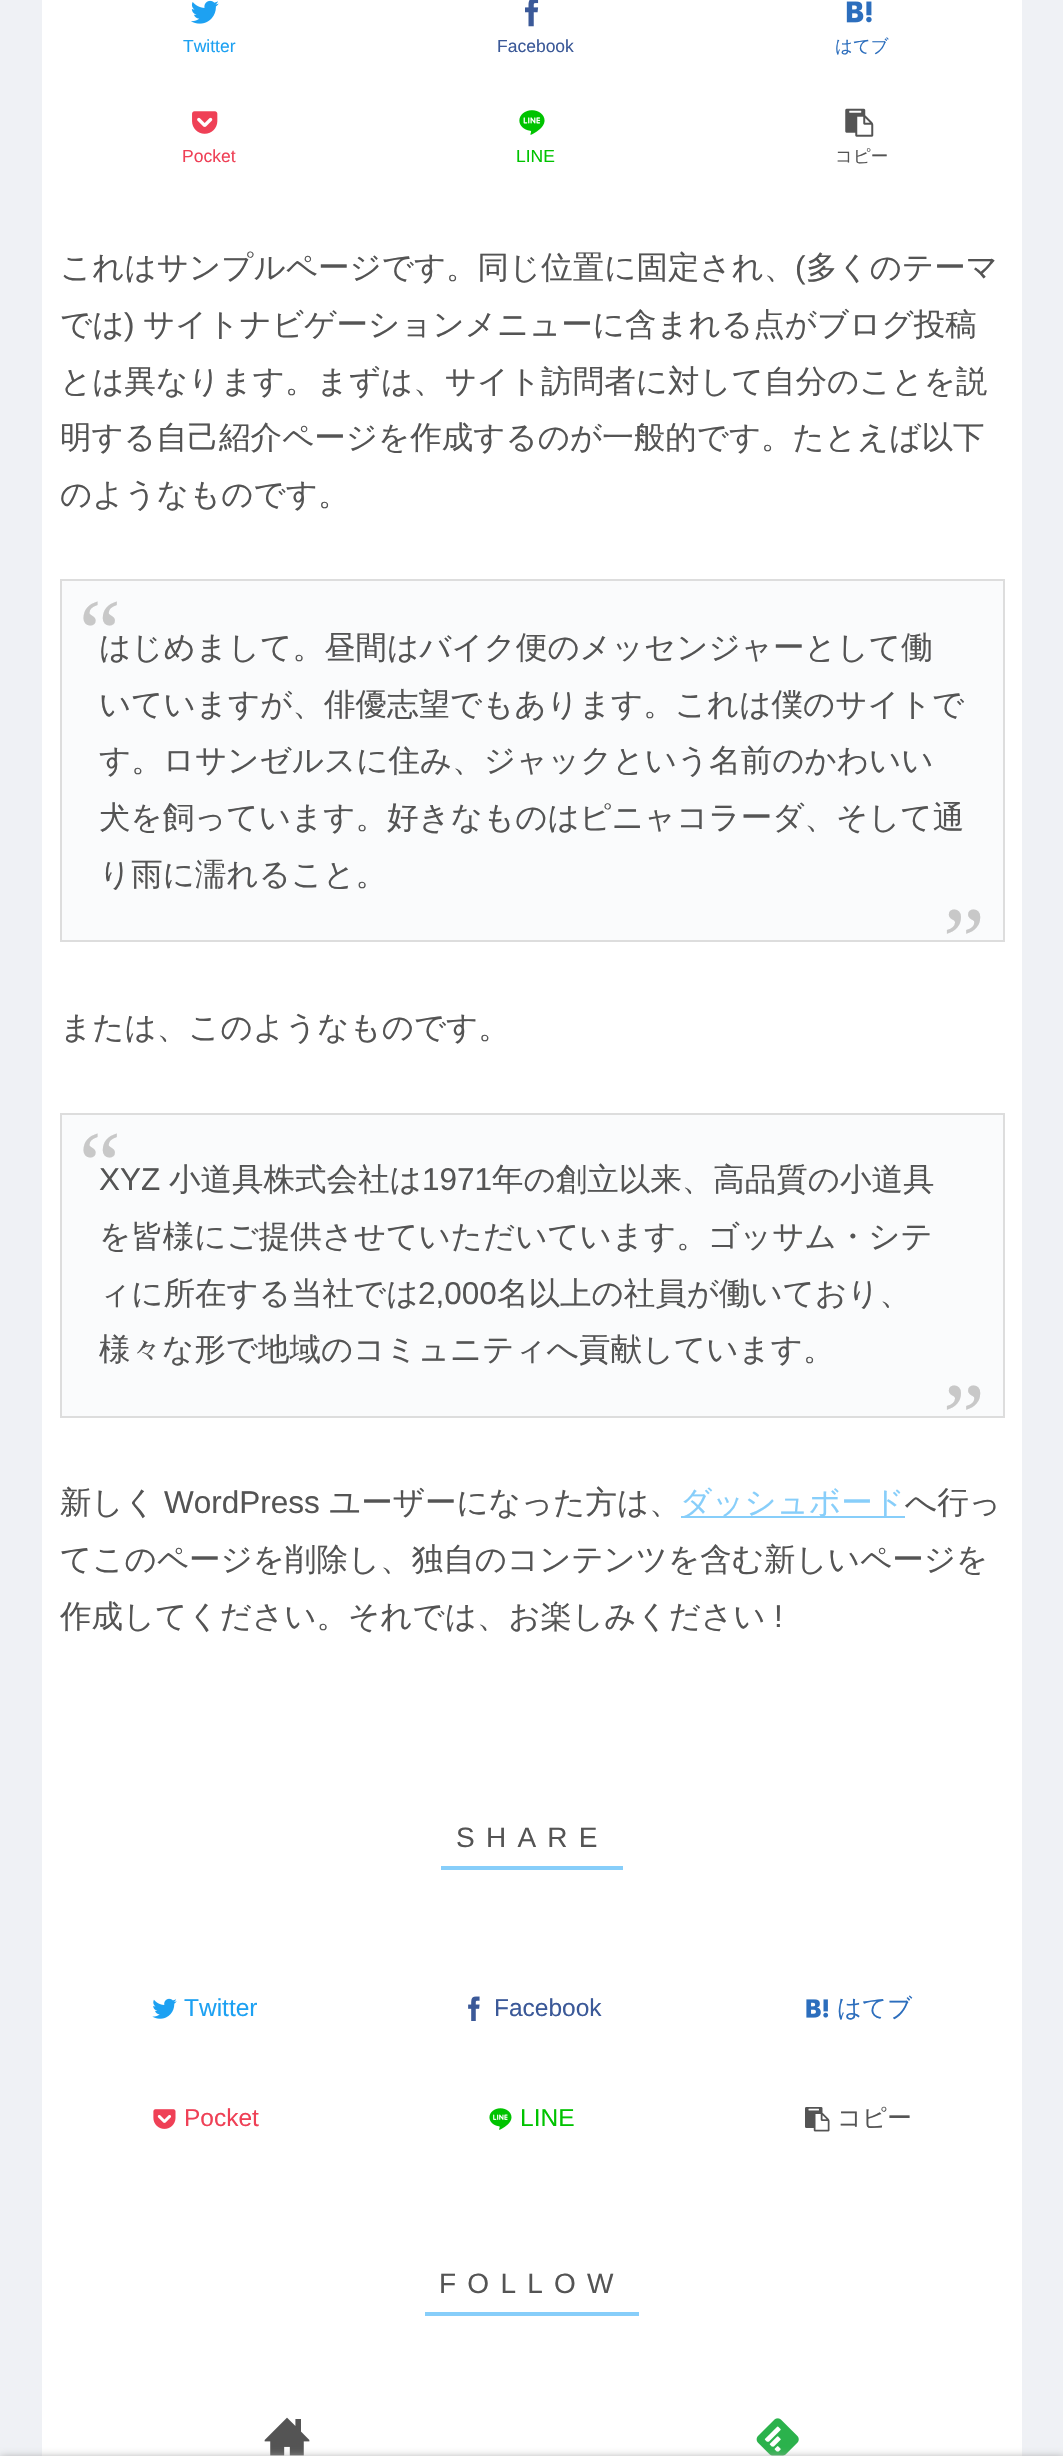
void draw(SkCanvas* canvas) {
    SkPaint paint;
    paint.setAntiAlias(true);
    auto face = [&](const char* family, int weight, float size, bool italic = false) {
        SkFontStyle style(weight, SkFontStyle::kNormal_Width,
            italic ? SkFontStyle::kItalic_Slant : SkFontStyle::kUpright_Slant);
        SkFont result(fontMgr->matchFamilyStyle(family, style), size);
        result.setSubpixel(true);
        return result;
    };
    auto write = [&](const char* s, float x, float y, const SkFont& font, SkColor color) {
        SkPaint ink(SkColor4f::FromColor(color));
        ink.setAntiAlias(true);
        canvas->drawString(s, x, y, font, ink);
    };
    auto writeSpaced = [&](const char* s, float x, float y, const SkFont& font, const SkPaint& ink, float letter, float word) {
        std::vector<SkGlyphID> glyphs(font.countText(s, strlen(s), SkTextEncoding::kUTF8));
        std::vector<float> xs(glyphs.size());
        font.textToGlyphs(s, strlen(s), SkTextEncoding::kUTF8, glyphs);
        font.getXPos(glyphs, xs, x);
        float extra = 0;
        for (size_t i = 0; i < glyphs.size(); i++) {
            xs[i] += extra;
            extra += letter + word * (glyphs[i] == font.unicharToGlyph(' '));
        }
        canvas->drawTextBlob(SkTextBlob::MakeFromPosHGlyphs(glyphs, xs, y, font), 0, 0, ink);
    };
    auto block = [&](float x, float y, float w, float h, SkColor color) {
        SkPaint ink(SkColor4f::FromColor(color));
        ink.setAntiAlias(true);
        canvas->drawRect(SkRect::MakeXYWH(x, y, w, h), ink);
    };
    auto paste = [&](const char* path, float x, float y, float w, float h) {
        auto image = SkImages::DeferredFromEncodedData(SkData::MakeFromFileName(path));
        canvas->drawImageRect(image, SkRect::MakeXYWH(x, y, w, h), SkSamplingOptions());
    };
    canvas->clear(SkColorSetRGB(239, 241, 245));
    block(42, 0, 980, 2456, SK_ColorWHITE);
    paste("pic1.png", 191, 0, 28, 24);
    auto kFont1 = face("Liberation Sans", 400, 17.5f);
    write("Twitter", 183, 52, kFont1, SkColorSetRGB(29, 161, 242));
    paste("pic2.png", 525, 0, 14, 27);
    write("Facebook", 497, 52, kFont1, SkColorSetRGB(59, 89, 152));
    paste("pic3.png", 846, 1, 26, 22);
    auto kFont2 = face("WenQuanYi Zen Hei", 500, 17.5f);
    write("はてブ", 835, 52, kFont2, SkColorSetRGB(44, 110, 189));
    paste("pic4.png", 192, 111, 26, 23);
    write("Pocket", 182, 162, kFont1, SkColorSetRGB(239, 64, 86));
    paste("pic5.png", 519, 110, 26, 25);
    write("LINE", 516, 162, kFont1, SkColorSetRGB(0, 195, 0));
    paste("pic6.png", 845, 108, 29, 29);
    write("コピー", 835, 162, kFont2, SkColorSetRGB(84, 84, 84));
    auto kFont3 = face("WenQuanYi Zen Hei", 500, 31.5f);
    write("これはサンプルページです。同じ位置に固定され、", 60, 278, kFont3, SkColorSetRGB(84, 84, 84));
    auto kFont4 = face("Liberation Sans", 400, 31.5f);
    write("(", 795, 278, kFont4, SkColorSetRGB(84, 84, 84));
    write("多くのテーマ", 806, 278, kFont3, SkColorSetRGB(84, 84, 84));
    write("では", 60, 335, kFont3, SkColorSetRGB(84, 84, 84));
    write(")", 124, 335, kFont4, SkColorSetRGB(84, 84, 84));
    write("サイトナビゲーションメニューに含まれる点がブログ投稿", 143, 335, kFont3, SkColorSetRGB(84, 84, 84));
    write("とは異なります。まずは、サイト訪問者に対して自分のことを説", 60, 392, kFont3, SkColorSetRGB(84, 84, 84));
    write("明する自己紹介ページを作成するのが一般的です。たとえば以下", 60, 448, kFont3, SkColorSetRGB(84, 84, 84));
    write("のようなものです。", 60, 505, kFont3, SkColorSetRGB(84, 84, 84));
    paint.setColor(SkColorSetRGB(250, 251, 252));
    canvas->drawRect(SkRect::MakeXYWH(61, 580, 943, 361), paint);
    paint.setStyle(SkPaint::kStroke_Style);
    paint.setStrokeWidth(2);
    paint.setColor(SkColorSetRGB(221, 221, 221));
    canvas->drawRect(SkRect::MakeXYWH(61, 580, 943, 361), paint);
    auto kFont5 = face("Liberation Serif", 400, 94);
    write("“", 79, 664, kFont5, SkColorSetRGB(200, 200, 200));
    write("はじめまして。昼間はバイク便のメッセンジャーとして働", 99, 658, kFont3, SkColorSetRGB(84, 84, 84));
    write("いていますが、俳優志望でもあります。これは僕のサイトで", 99, 715, kFont3, SkColorSetRGB(84, 84, 84));
    write("す。ロサンゼルスに住み、ジャックという名前のかわいい", 99, 771, kFont3, SkColorSetRGB(84, 84, 84));
    write("犬を飼っています。好きなものはピニャコラーダ、そして通", 99, 828, kFont3, SkColorSetRGB(84, 84, 84));
    write("り雨に濡れること。", 99, 885, kFont3, SkColorSetRGB(84, 84, 84));
    write("”", 943, 972, kFont5, SkColorSetRGB(200, 200, 200));
    write("または、このようなものです。", 60, 1038, kFont3, SkColorSetRGB(84, 84, 84));
    paint.setStyle(SkPaint::kFill_Style);
    paint.setColor(SkColorSetRGB(250, 251, 252));
    canvas->drawRect(SkRect::MakeXYWH(61, 1114, 943, 303), paint);
    paint.setStyle(SkPaint::kStroke_Style);
    paint.setColor(SkColorSetRGB(221, 221, 221));
    canvas->drawRect(SkRect::MakeXYWH(61, 1114, 943, 303), paint);
    write("“", 79, 1196, kFont5, SkColorSetRGB(200, 200, 200));
    write("XYZ", 99, 1190, kFont4, SkColorSetRGB(84, 84, 84));
    write("小道具株式会社は", 169, 1190, kFont3, SkColorSetRGB(84, 84, 84));
    write("1971", 422, 1190, kFont4, SkColorSetRGB(84, 84, 84));
    write("年の創立以来、高品質の小道具", 492, 1190, kFont3, SkColorSetRGB(84, 84, 84));
    write("を皆様にご提供させていただいています。ゴッサム・シテ", 99, 1247, kFont3, SkColorSetRGB(84, 84, 84));
    write("ィに所在する当社では", 99, 1304, kFont3, SkColorSetRGB(84, 84, 84));
    write("2,000", 418, 1304, kFont4, SkColorSetRGB(84, 84, 84));
    write("名以上の社員が働いており、", 497, 1304, kFont3, SkColorSetRGB(84, 84, 84));
    write("様々な形で地域のコミュニティへ貢献しています。", 99, 1360, kFont3, SkColorSetRGB(84, 84, 84));
    write("”", 943, 1448, kFont5, SkColorSetRGB(200, 200, 200));
    write("新しく", 60, 1513, kFont3, SkColorSetRGB(84, 84, 84));
    write("WordPress", 164, 1513, kFont4, SkColorSetRGB(84, 84, 84));
    write("ユーザーになった方は、", 329, 1513, kFont3, SkColorSetRGB(84, 84, 84));
    block(681, 1516, 224, 2, SkColorSetRGB(135, 206, 250));
    write("ダッシュボード", 680, 1513, kFont3, SkColorSetRGB(135, 206, 250));
    write("へ行っ", 905, 1513, kFont3, SkColorSetRGB(84, 84, 84));
    write("てこのページを削除し、独自のコンテンツを含む新しいページを", 60, 1570, kFont3, SkColorSetRGB(84, 84, 84));
    write("作成してください。それでは、お楽しみください", 60, 1627, kFont3, SkColorSetRGB(84, 84, 84));
    write("!", 774, 1627, kFont4, SkColorSetRGB(84, 84, 84));
    auto kFont6 = face("Liberation Sans", 400, 28);
    paint.setStyle(SkPaint::kFill_Style);
    paint.setColor(SkColorSetRGB(84, 84, 84));
    writeSpaced("SHARE", 456, 1847, kFont6, paint, 11.25f, 0);
    block(441, 1866, 182, 4, SkColorSetRGB(135, 206, 250));
    paste("pic7.png", 152, 1998, 25, 21);
    auto kFont7 = face("Liberation Sans", 400, 24.5f);
    write("Twitter", 184, 2016, kFont7, SkColorSetRGB(29, 161, 242));
    paste("pic8.png", 468, 1996, 12, 25);
    write("Facebook", 494, 2016, kFont7, SkColorSetRGB(59, 89, 152));
    paste("pic9.png", 806, 1999, 23, 19);
    auto kFont8 = face("WenQuanYi Zen Hei", 500, 24.5f);
    write("はてブ", 837, 2016, kFont8, SkColorSetRGB(44, 110, 189));
    paste("pic10.png", 153, 2109, 23, 20);
    write("Pocket", 184, 2126, kFont7, SkColorSetRGB(239, 64, 86));
    paste("pic11.png", 489, 2108, 23, 22);
    write("LINE", 520, 2126, kFont7, SkColorSetRGB(0, 195, 0));
    paste("pic12.png", 805, 2107, 25, 25);
    write("コピー", 837, 2126, kFont8, SkColorSetRGB(84, 84, 84));
    writeSpaced("FOLLOW", 439, 2293, kFont6, paint, 11.25f, 0);
    block(425, 2312, 214, 4, SkColorSetRGB(135, 206, 250));
    paste("pic13.png", 264, 2417, 46, 39);
    paste("pic14.png", 756, 2418, 43, 38);
    paint.setColor(SkColorSetRGB(169, 169, 169));
    paint.setMaskFilter(SkMaskFilter::MakeBlur(kNormal_SkBlurStyle, 4.5f));
    canvas->drawRect(SkRect::MakeXYWH(0, 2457, 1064, 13), paint);
    paint.setMaskFilter(nullptr);
}
